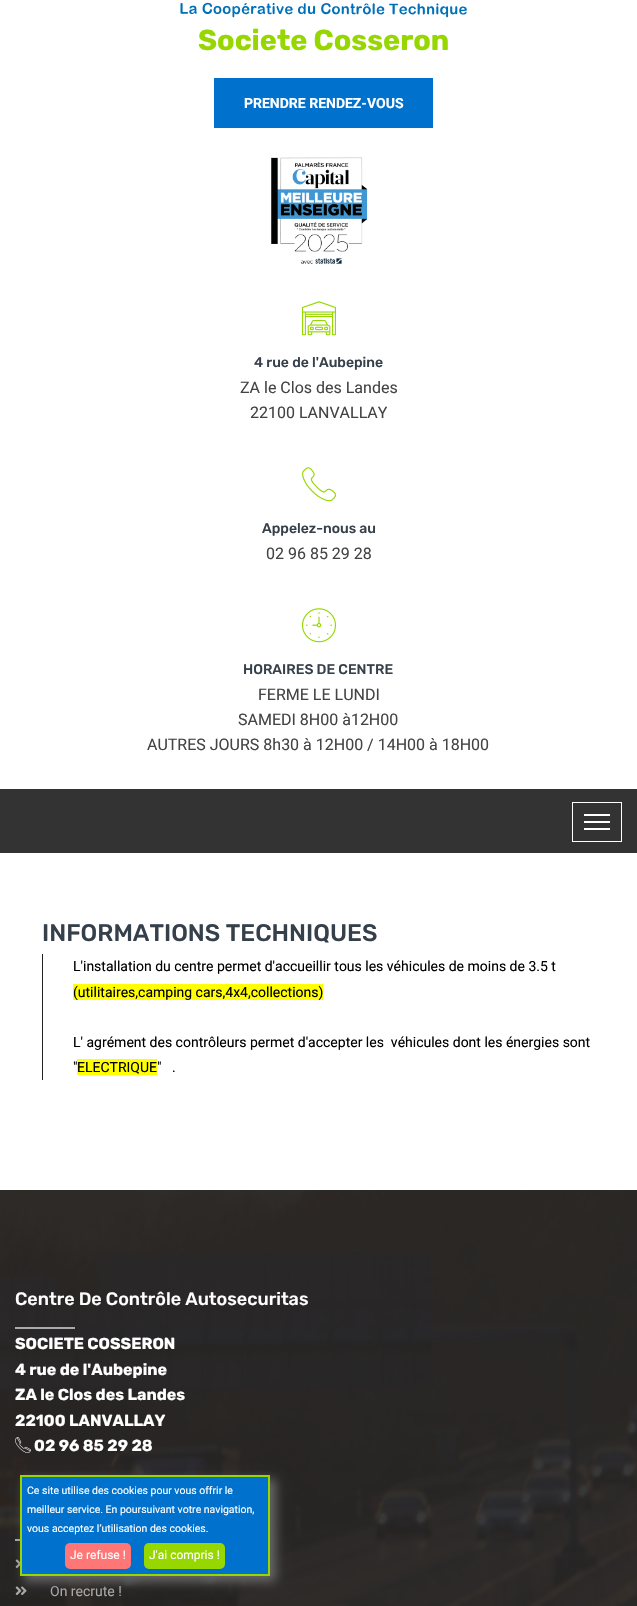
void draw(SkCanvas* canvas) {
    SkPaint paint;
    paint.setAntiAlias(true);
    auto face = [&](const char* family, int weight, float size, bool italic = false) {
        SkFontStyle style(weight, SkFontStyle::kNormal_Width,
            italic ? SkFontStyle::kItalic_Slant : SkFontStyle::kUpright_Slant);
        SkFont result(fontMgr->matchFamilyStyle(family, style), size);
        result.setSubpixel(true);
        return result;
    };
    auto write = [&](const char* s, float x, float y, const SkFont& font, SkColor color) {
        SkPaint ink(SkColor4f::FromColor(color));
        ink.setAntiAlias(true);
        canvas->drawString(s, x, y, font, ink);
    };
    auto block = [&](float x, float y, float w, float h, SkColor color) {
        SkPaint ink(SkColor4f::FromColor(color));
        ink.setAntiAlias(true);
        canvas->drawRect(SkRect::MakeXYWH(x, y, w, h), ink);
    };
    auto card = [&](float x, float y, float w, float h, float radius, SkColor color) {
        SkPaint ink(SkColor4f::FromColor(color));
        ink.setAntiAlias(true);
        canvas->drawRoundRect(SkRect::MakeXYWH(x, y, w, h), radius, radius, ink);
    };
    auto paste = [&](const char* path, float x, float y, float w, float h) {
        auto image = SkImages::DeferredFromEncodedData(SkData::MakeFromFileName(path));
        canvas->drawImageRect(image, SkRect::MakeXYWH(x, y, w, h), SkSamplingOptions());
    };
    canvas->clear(SK_ColorWHITE);
    paste("pic1.png", 180, 2, 287, 16);
    auto kFont1 = face("Rubik", 700, 28.75f);
    write("Societe Cosseron", 198, 50, kFont1, SkColorSetRGB(151, 215, 0));
    block(214, 78, 219, 50, SkColorSetRGB(0, 114, 206));
    auto kFont2 = face("Roboto", 700, 14);
    write("PRENDRE RENDEZ-VOUS", 244, 108, kFont2, SK_ColorWHITE);
    paste("pic2.png", 271, 157, 97, 107);
    paste("pic3.png", 302, 301, 34, 35);
    auto kFont3 = face("Rubik", 500, 14);
    write("4 rue de l'Aubepine", 254, 367, kFont3, SkColorSetRGB(54, 64, 75));
    auto kFont4 = face("Roboto", 400, 16);
    write("ZA le Clos des Landes", 240, 393, kFont4, SkColorSetRGB(68, 68, 68));
    write("22100 LANVALLAY", 250, 418, kFont4, SkColorSetRGB(68, 68, 68));
    paste("pic4.png", 302, 467, 34, 35);
    write("Appelez-nous au", 262, 533, kFont3, SkColorSetRGB(54, 64, 75));
    write("02 96 85 29 28", 266, 559, kFont4, SkColorSetRGB(68, 68, 68));
    paste("pic5.png", 302, 608, 34, 35);
    write("HORAIRES DE CENTRE", 243, 674, kFont3, SkColorSetRGB(54, 64, 75));
    write("FERME LE LUNDI", 258, 700, kFont4, SkColorSetRGB(68, 68, 68));
    write("SAMEDI 8H00 à12H00", 238, 725, kFont4, SkColorSetRGB(68, 68, 68));
    write("AUTRES JOURS 8h30 à 12H00 / 14H00 à 18H00", 147, 750, kFont4, SkColorSetRGB(68, 68, 68));
    block(0, 789, 637, 64, SkColorSetRGB(51, 51, 51));
    paint.setStyle(SkPaint::kStroke_Style);
    paint.setStrokeWidth(1);
    paint.setColor(SK_ColorWHITE);
    canvas->drawRect(SkRect::MakeXYWH(572.5f, 802.5f, 49, 39), paint);
    block(584, 814, 26, 2, SK_ColorWHITE);
    block(584, 821, 26, 2, SK_ColorWHITE);
    block(584, 828, 26, 2, SK_ColorWHITE);
    auto kFont5 = face("Rubik", 500, 24);
    write("INFORMATIONS TECHNIQUES", 42, 941, kFont5, SkColorSetRGB(54, 64, 75));
    block(42, 954, 1, 126, SkColorSetRGB(34, 34, 34));
    auto kFont6 = face("Roboto", 400, 14);
    write("L'installation du centre permet d'accueillir tous les véhicules de moins de 3.5 t", 73, 971, kFont6, SK_ColorBLACK);
    block(73, 984, 250, 16, SkColorSetRGB(255, 255, 0));
    write("(utilitaires,camping cars,4x4,collections)", 73, 997, kFont6, SK_ColorBLACK);
    write("L' agrément des contrôleurs permet d'accepter les  véhicules dont les énergies sont", 73, 1047, kFont6, SK_ColorBLACK);
    write("\"", 73, 1072, kFont6, SK_ColorBLACK);
    block(77, 1059, 80, 16, SkColorSetRGB(255, 255, 0));
    write("ELECTRIQUE\"   .", 77, 1072, kFont6, SK_ColorBLACK);
    paste("pic6.png", 0, 1190, 637, 416);
    auto kFont7 = face("Rubik", 500, 18);
    write("Centre De Contrôle Autosecuritas", 15, 1305, kFont7, SK_ColorWHITE);
    block(15, 1327, 60, 2, SkColorSetRGB(170, 170, 170));
    auto kFont8 = face("Rubik", 700, 16);
    write("SOCIETE COSSERON", 15, 1349, kFont8, SK_ColorWHITE);
    write("4 rue de l'Aubepine", 15, 1375, kFont8, SK_ColorWHITE);
    write("ZA le Clos des Landes", 15, 1400, kFont8, SK_ColorWHITE);
    write("22100 LANVALLAY", 15, 1426, kFont8, SK_ColorWHITE);
    paste("pic7.png", 15, 1437, 16, 16);
    write("02 96 85 29 28", 34, 1451, kFont8, SK_ColorWHITE);
    block(15, 1539, 5, 2, SkColorSetRGB(170, 170, 170));
    paste("pic8.png", 15, 1559, 5, 10);
    paste("pic9.png", 15, 1586, 12, 10);
    write("On recrute !", 50, 1596, kFont6, SkColorSetRGB(170, 170, 170));
    paint.setStyle(SkPaint::kFill_Style);
    paint.setColor(SkColorSetRGB(103, 102, 102));
    paint.setMaskFilter(SkMaskFilter::MakeBlur(kNormal_SkBlurStyle, 5));
    canvas->drawRect(SkRect::MakeXYWH(24, 1479, 252, 103), paint);
    paint.setMaskFilter(nullptr);
    paint.setColor(SkColorSetRGB(0, 114, 206));
    canvas->drawRect(SkRect::MakeXYWH(21, 1476, 248, 99), paint);
    paint.setStyle(SkPaint::kStroke_Style);
    paint.setStrokeWidth(2);
    paint.setColor(SkColorSetRGB(151, 215, 0));
    canvas->drawRect(SkRect::MakeXYWH(21, 1476, 248, 99), paint);
    auto kFont9 = face("Roboto", 400, 10.5f);
    write("Ce site utilise des cookies pour vous offrir le", 27, 1494, kFont9, SK_ColorWHITE);
    write("meilleur service. En poursuivant votre navigation,", 27, 1513, kFont9, SK_ColorWHITE);
    write("vous acceptez l’utilisation des cookies.", 27, 1532, kFont9, SK_ColorWHITE);
    card(65, 1543, 66, 26, 5, SkColorSetRGB(255, 118, 118));
    auto kFont10 = face("Roboto", 400, 12);
    write("Je refuse !", 70, 1559, kFont10, SK_ColorWHITE);
    card(144, 1543, 81, 26, 5, SkColorSetRGB(151, 215, 0));
    write("J'ai compris !", 149, 1559, kFont10, SK_ColorWHITE);
}
